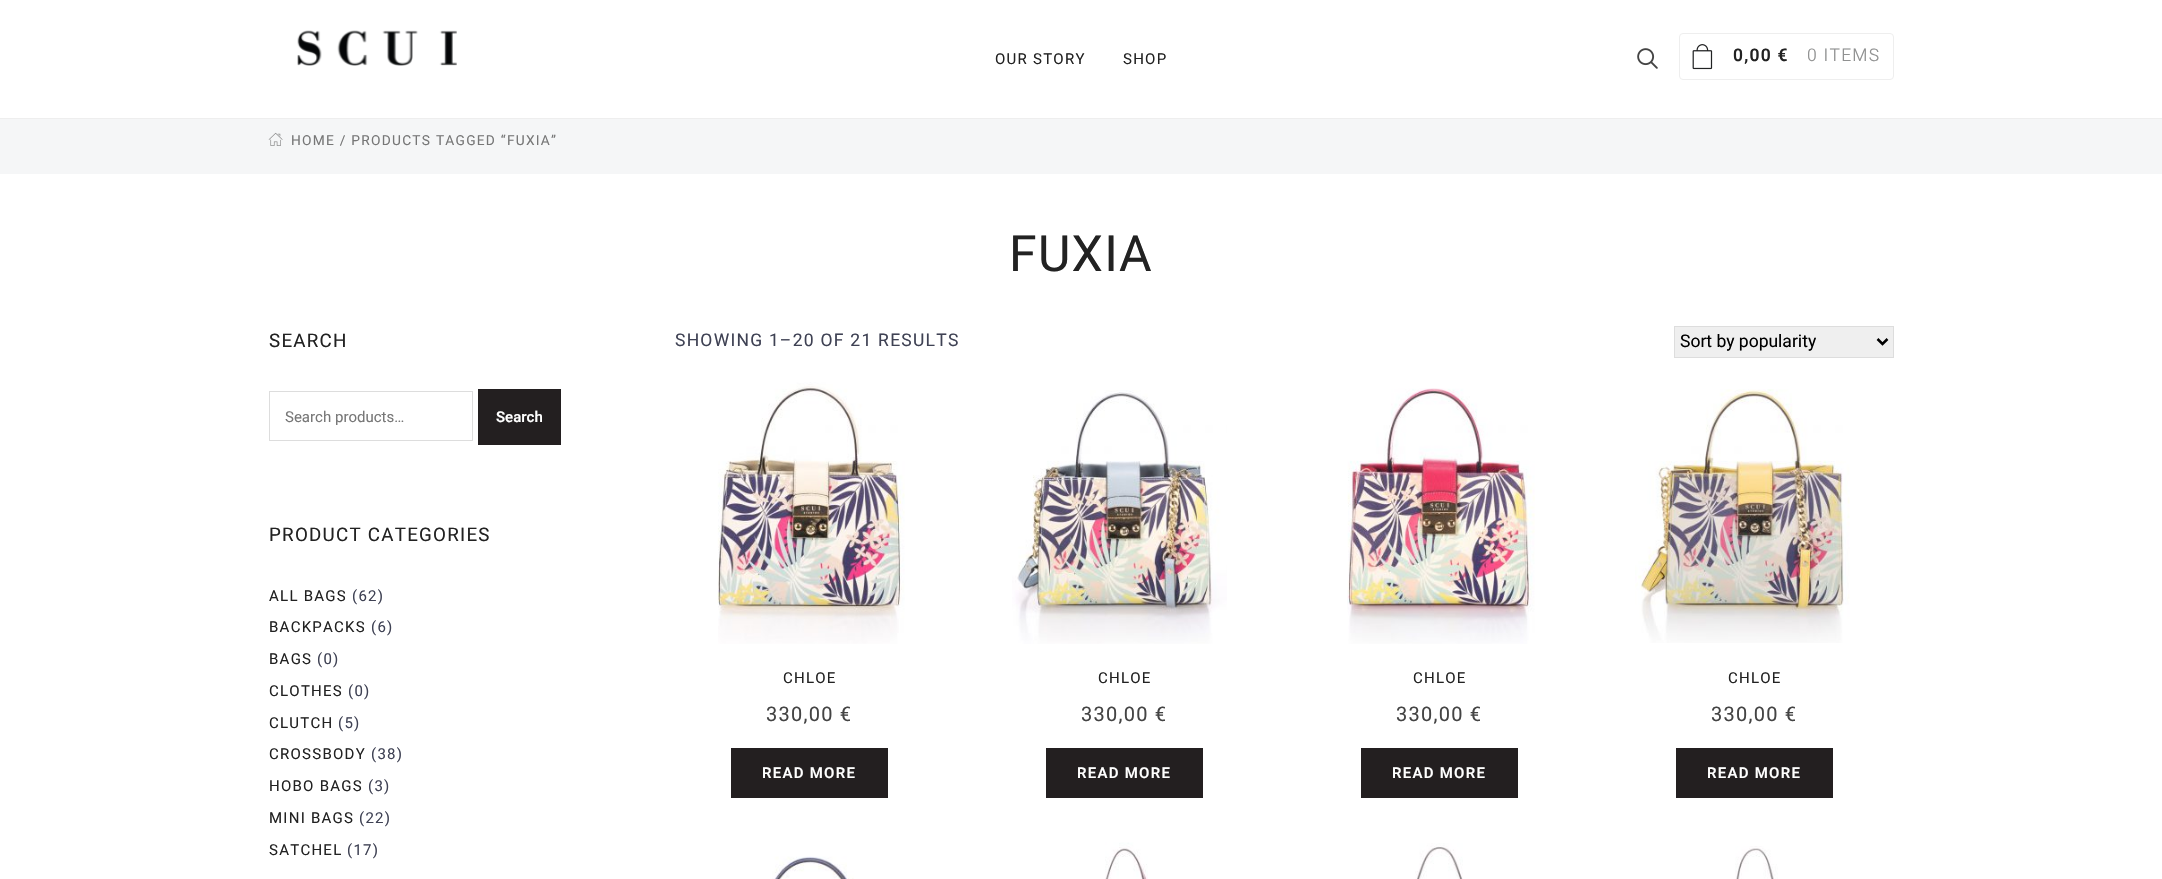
void draw(SkCanvas* canvas) {
    SkPaint paint;
    paint.setAntiAlias(true);
    auto face = [&](const char* family, int weight, float size, bool italic = false) {
        SkFontStyle style(weight, SkFontStyle::kNormal_Width,
            italic ? SkFontStyle::kItalic_Slant : SkFontStyle::kUpright_Slant);
        SkFont result(fontMgr->matchFamilyStyle(family, style), size);
        result.setSubpixel(true);
        return result;
    };
    auto write = [&](const char* s, float x, float y, const SkFont& font, SkColor color) {
        SkPaint ink(SkColor4f::FromColor(color));
        ink.setAntiAlias(true);
        canvas->drawString(s, x, y, font, ink);
    };
    auto writeSpaced = [&](const char* s, float x, float y, const SkFont& font, const SkPaint& ink, float letter, float word) {
        std::vector<SkGlyphID> glyphs(font.countText(s, strlen(s), SkTextEncoding::kUTF8));
        std::vector<float> xs(glyphs.size());
        font.textToGlyphs(s, strlen(s), SkTextEncoding::kUTF8, glyphs);
        font.getXPos(glyphs, xs, x);
        float extra = 0;
        for (size_t i = 0; i < glyphs.size(); i++) {
            xs[i] += extra;
            extra += letter + word * (glyphs[i] == font.unicharToGlyph(' '));
        }
        canvas->drawTextBlob(SkTextBlob::MakeFromPosHGlyphs(glyphs, xs, y, font), 0, 0, ink);
    };
    auto block = [&](float x, float y, float w, float h, SkColor color) {
        SkPaint ink(SkColor4f::FromColor(color));
        ink.setAntiAlias(true);
        canvas->drawRect(SkRect::MakeXYWH(x, y, w, h), ink);
    };
    auto paste = [&](const char* path, float x, float y, float w, float h) {
        auto image = SkImages::DeferredFromEncodedData(SkData::MakeFromFileName(path));
        canvas->drawImageRect(image, SkRect::MakeXYWH(x, y, w, h), SkSamplingOptions());
    };
    canvas->clear(SK_ColorWHITE);
    block(0, 118, 2162, 1, SkColorSetRGB(238, 238, 238));
    paste("pic1.png", 297, 30, 160, 36);
    auto kFont1 = face("Heebo", 400, 15);
    paint.setColor(SkColorSetRGB(34, 34, 34));
    writeSpaced("OUR STORY", 995, 64, kFont1, paint, 1.25f, 0);
    writeSpaced("SHOP", 1123, 64, kFont1, paint, 1.25f, 0);
    paste("pic2.png", 1637, 48, 21, 21);
    paint.setStyle(SkPaint::kStroke_Style);
    paint.setStrokeWidth(1);
    paint.setColor(SkColorSetRGB(238, 238, 238));
    canvas->drawRoundRect(SkRect::MakeXYWH(1679.5f, 33.5f, 214, 46), 3.5f, 3.5f, paint);
    paste("pic3.png", 1692, 44, 21, 26);
    auto kFont2 = face("Heebo", 600, 17.5f);
    paint.setStyle(SkPaint::kFill_Style);
    paint.setColor(SkColorSetRGB(34, 34, 34));
    writeSpaced("0,00 €", 1733, 61, kFont2, paint, 1.25f, 0);
    auto kFont3 = face("Heebo", 300, 17.5f);
    paint.setColor(SkColorSetRGB(144, 145, 145));
    writeSpaced("0 ITEMS", 1807, 61, kFont3, paint, 1.25f, 0);
    block(0, 119, 2162, 55, SkColorSetRGB(245, 246, 247));
    paste("pic4.png", 268, 132, 15, 14);
    auto kFont4 = face("Heebo", 400, 13.75f);
    paint.setColor(SkColorSetRGB(119, 119, 119));
    writeSpaced("HOME / PRODUCTS TAGGED “FUXIA”", 291, 145, kFont4, paint, 1.25f, 0);
    auto kFont5 = face("Heebo", 400, 50);
    paint.setColor(SkColorSetRGB(34, 34, 34));
    writeSpaced("FUXIA", 1009, 271, kFont5, paint, 1.25f, 0);
    auto kFont6 = face("Heebo", 400, 18.75f);
    writeSpaced("SEARCH", 269, 347, kFont6, paint, 1.25f, 0);
    paint.setStyle(SkPaint::kStroke_Style);
    paint.setColor(SkColorSetRGB(221, 221, 221));
    canvas->drawRect(SkRect::MakeXYWH(269.5f, 391.5f, 203, 49), paint);
    write("Search products…", 285, 422, kFont1, SkColorSetRGB(119, 119, 119));
    block(478, 389, 83, 56, SkColorSetRGB(35, 31, 32));
    auto kFont7 = face("Heebo", 600, 15);
    write("Search", 496, 422, kFont7, SK_ColorWHITE);
    paint.setStyle(SkPaint::kFill_Style);
    paint.setColor(SkColorSetRGB(34, 34, 34));
    writeSpaced("PRODUCT CATEGORIES", 269, 541, kFont6, paint, 1.25f, 0);
    writeSpaced("ALL BAGS", 269, 601, kFont1, paint, 1.25f, 0);
    paint.setColor(SkColorSetRGB(63, 66, 84));
    writeSpaced("(62)", 352, 601, kFont1, paint, 1.25f, 0);
    paint.setColor(SkColorSetRGB(34, 34, 34));
    writeSpaced("BACKPACKS", 269, 632, kFont1, paint, 1.25f, 0);
    paint.setColor(SkColorSetRGB(63, 66, 84));
    writeSpaced("(6)", 371, 632, kFont1, paint, 1.25f, 0);
    paint.setColor(SkColorSetRGB(34, 34, 34));
    writeSpaced("BAGS", 269, 664, kFont1, paint, 1.25f, 0);
    paint.setColor(SkColorSetRGB(63, 66, 84));
    writeSpaced("(0)", 317, 664, kFont1, paint, 1.25f, 0);
    paint.setColor(SkColorSetRGB(34, 34, 34));
    writeSpaced("CLOTHES", 269, 696, kFont1, paint, 1.25f, 0);
    paint.setColor(SkColorSetRGB(63, 66, 84));
    writeSpaced("(0)", 348, 696, kFont1, paint, 1.25f, 0);
    paint.setColor(SkColorSetRGB(34, 34, 34));
    writeSpaced("CLUTCH", 269, 728, kFont1, paint, 1.25f, 0);
    paint.setColor(SkColorSetRGB(63, 66, 84));
    writeSpaced("(5)", 338, 728, kFont1, paint, 1.25f, 0);
    paint.setColor(SkColorSetRGB(34, 34, 34));
    writeSpaced("CROSSBODY", 269, 759, kFont1, paint, 1.25f, 0);
    paint.setColor(SkColorSetRGB(63, 66, 84));
    writeSpaced("(38)", 371, 759, kFont1, paint, 1.25f, 0);
    paint.setColor(SkColorSetRGB(34, 34, 34));
    writeSpaced("HOBO BAGS", 269, 791, kFont1, paint, 1.25f, 0);
    paint.setColor(SkColorSetRGB(63, 66, 84));
    writeSpaced("(3)", 368, 791, kFont1, paint, 1.25f, 0);
    paint.setColor(SkColorSetRGB(34, 34, 34));
    writeSpaced("MINI BAGS", 269, 823, kFont1, paint, 1.25f, 0);
    paint.setColor(SkColorSetRGB(63, 66, 84));
    writeSpaced("(22)", 359, 823, kFont1, paint, 1.25f, 0);
    paint.setColor(SkColorSetRGB(34, 34, 34));
    writeSpaced("SATCHEL", 269, 855, kFont1, paint, 1.25f, 0);
    paint.setColor(SkColorSetRGB(63, 66, 84));
    writeSpaced("(17)", 347, 855, kFont1, paint, 1.25f, 0);
    auto kFont8 = face("Heebo", 400, 17.5f);
    writeSpaced("SHOWING 1–20 OF 21 RESULTS", 675, 346, kFont8, paint, 1.25f, 0);
    paint.setColor(SkColorSetRGB(239, 239, 239));
    canvas->drawRect(SkRect::MakeXYWH(1674.5f, 326.5f, 219, 31), paint);
    paint.setStyle(SkPaint::kStroke_Style);
    paint.setColor(SkColorSetRGB(221, 221, 221));
    canvas->drawRect(SkRect::MakeXYWH(1674.5f, 326.5f, 219, 31), paint);
    paint.setStrokeWidth(2.5f);
    paint.setColor(SK_ColorBLACK);
    canvas->drawPath(SkPathBuilder().moveTo(1877.5f, 339).lineTo(1882.5f, 344).lineTo(1887.5f, 339).detach(), paint);
    write("Sort by popularity", 1680, 347, kFont8, SK_ColorBLACK);
    paste("pic5.png", 717, 382, 188, 262);
    paint.setStyle(SkPaint::kFill_Style);
    paint.setColor(SkColorSetRGB(34, 34, 34));
    writeSpaced("CHLOE", 783, 683, kFont1, paint, 1.25f, 0);
    auto kFont9 = face("Heebo", 400, 20);
    paint.setColor(SkColorSetRGB(68, 68, 68));
    writeSpaced("330,00 €", 766, 721, kFont9, paint, 1.25f, 0);
    block(731, 748, 157, 50, SkColorSetRGB(35, 31, 32));
    paint.setColor(SK_ColorWHITE);
    writeSpaced("READ MORE", 762, 778, kFont7, paint, 1.25f, 0);
    paste("pic6.png", 1012, 390, 215, 254);
    paint.setColor(SkColorSetRGB(34, 34, 34));
    writeSpaced("CHLOE", 1098, 683, kFont1, paint, 1.25f, 0);
    paint.setColor(SkColorSetRGB(68, 68, 68));
    writeSpaced("330,00 €", 1081, 721, kFont9, paint, 1.25f, 0);
    block(1046, 748, 157, 50, SkColorSetRGB(35, 31, 32));
    paint.setColor(SK_ColorWHITE);
    writeSpaced("READ MORE", 1077, 778, kFont7, paint, 1.25f, 0);
    paste("pic7.png", 1347, 388, 188, 256);
    paint.setColor(SkColorSetRGB(34, 34, 34));
    writeSpaced("CHLOE", 1413, 683, kFont1, paint, 1.25f, 0);
    paint.setColor(SkColorSetRGB(68, 68, 68));
    writeSpaced("330,00 €", 1396, 721, kFont9, paint, 1.25f, 0);
    block(1361, 748, 157, 50, SkColorSetRGB(35, 31, 32));
    paint.setColor(SK_ColorWHITE);
    writeSpaced("READ MORE", 1392, 778, kFont7, paint, 1.25f, 0);
    paste("pic8.png", 1635, 389, 215, 254);
    paint.setColor(SkColorSetRGB(34, 34, 34));
    writeSpaced("CHLOE", 1728, 683, kFont1, paint, 1.25f, 0);
    paint.setColor(SkColorSetRGB(68, 68, 68));
    writeSpaced("330,00 €", 1711, 721, kFont9, paint, 1.25f, 0);
    block(1676, 748, 157, 50, SkColorSetRGB(35, 31, 32));
    paint.setColor(SK_ColorWHITE);
    writeSpaced("READ MORE", 1707, 778, kFont7, paint, 1.25f, 0);
    paste("pic9.png", 772, 856, 82, 23);
    paste("pic10.png", 1105, 842, 43, 37);
    paste("pic11.png", 1415, 843, 48, 36);
    paste("pic12.png", 1735, 846, 43, 33);
}
